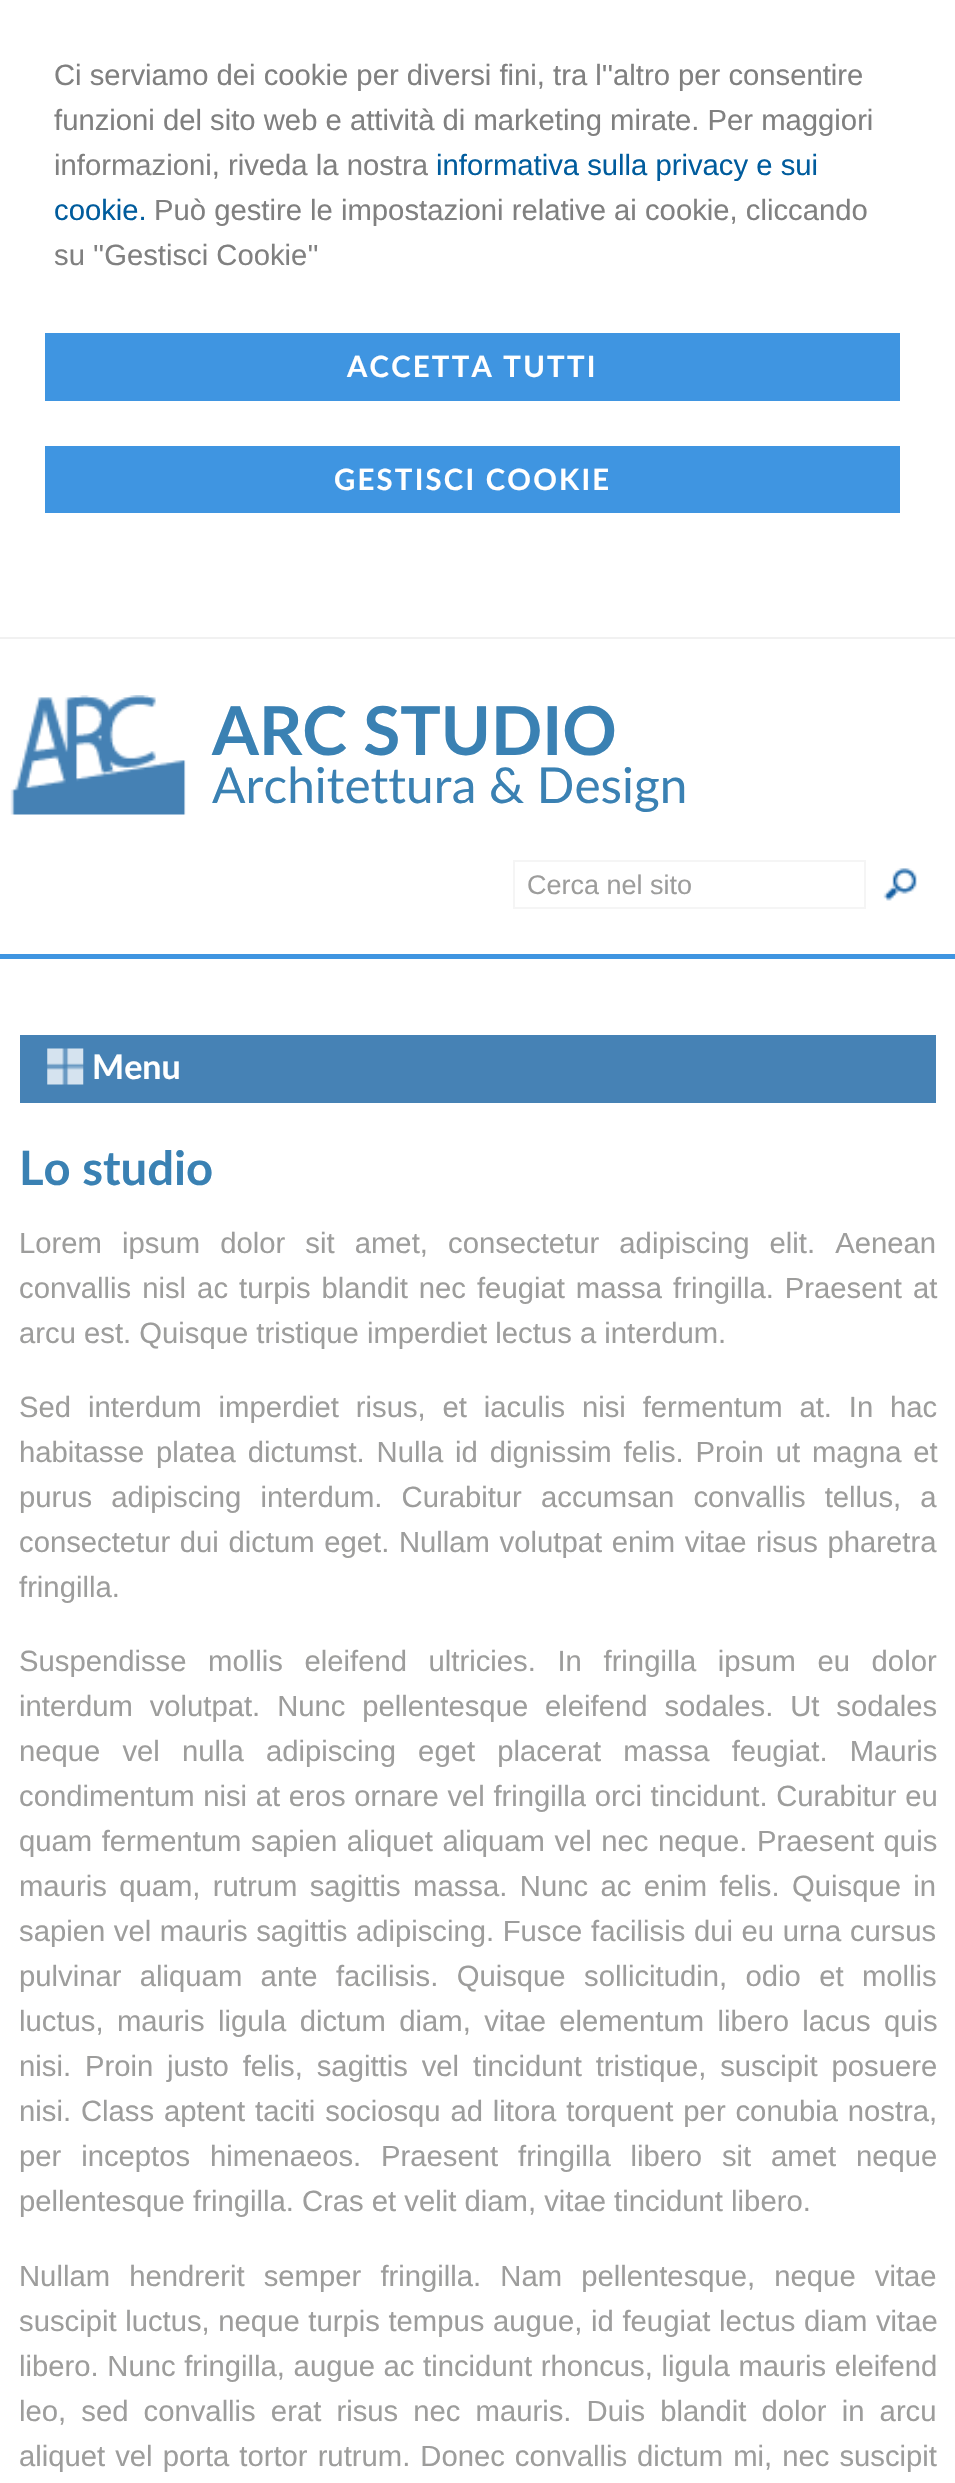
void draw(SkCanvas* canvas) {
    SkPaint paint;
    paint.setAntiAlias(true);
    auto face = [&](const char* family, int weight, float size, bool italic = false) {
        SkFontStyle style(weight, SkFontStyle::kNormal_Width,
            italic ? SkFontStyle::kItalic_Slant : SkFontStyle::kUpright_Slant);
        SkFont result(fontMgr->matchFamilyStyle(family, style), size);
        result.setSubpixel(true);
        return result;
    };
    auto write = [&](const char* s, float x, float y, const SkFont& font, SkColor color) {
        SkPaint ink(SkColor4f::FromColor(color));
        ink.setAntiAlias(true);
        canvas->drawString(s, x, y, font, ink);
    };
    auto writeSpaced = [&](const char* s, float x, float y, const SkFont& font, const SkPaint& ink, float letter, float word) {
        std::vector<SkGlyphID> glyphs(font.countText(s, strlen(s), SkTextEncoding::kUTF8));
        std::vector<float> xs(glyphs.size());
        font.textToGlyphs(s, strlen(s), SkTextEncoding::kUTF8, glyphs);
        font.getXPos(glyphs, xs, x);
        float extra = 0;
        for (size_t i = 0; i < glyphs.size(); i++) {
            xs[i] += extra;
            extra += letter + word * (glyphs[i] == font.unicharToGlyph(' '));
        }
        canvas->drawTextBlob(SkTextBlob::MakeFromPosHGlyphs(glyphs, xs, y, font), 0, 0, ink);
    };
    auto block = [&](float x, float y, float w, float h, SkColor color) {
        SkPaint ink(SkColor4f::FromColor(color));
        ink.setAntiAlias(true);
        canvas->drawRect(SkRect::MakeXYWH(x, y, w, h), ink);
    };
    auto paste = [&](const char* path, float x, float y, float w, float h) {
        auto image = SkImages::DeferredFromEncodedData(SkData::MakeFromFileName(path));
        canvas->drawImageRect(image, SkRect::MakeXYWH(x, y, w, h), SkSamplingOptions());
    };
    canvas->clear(SK_ColorWHITE);
    block(0, 637, 955, 2, SkColorSetRGB(241, 241, 241));
    auto kFont1 = face("Liberation Sans", 400, 29.25f);
    write("Ci serviamo dei cookie per diversi fini, tra l''altro per consentire", 54, 85, kFont1, SkColorSetRGB(128, 128, 128));
    write("funzioni del sito web e attività di marketing mirate. Per maggiori", 54, 130, kFont1, SkColorSetRGB(128, 128, 128));
    write("informazioni, riveda la nostra", 54, 175, kFont1, SkColorSetRGB(128, 128, 128));
    write("informativa sulla privacy e sui", 436, 175, kFont1, SkColorSetRGB(0, 92, 157));
    write("cookie.", 54, 220, kFont1, SkColorSetRGB(0, 92, 157));
    write("Può gestire le impostazioni relative ai cookie, cliccando", 154, 220, kFont1, SkColorSetRGB(128, 128, 128));
    write("su ''Gestisci Cookie''", 54, 265, kFont1, SkColorSetRGB(128, 128, 128));
    block(45, 333, 855, 68, SkColorSetRGB(63, 149, 225));
    auto kFont2 = face("Lato", 700, 29.25f);
    paint.setColor(SK_ColorWHITE);
    writeSpaced("ACCETTA TUTTI", 347, 377, kFont2, paint, 2.25f, 0);
    block(45, 446, 855, 67, SkColorSetRGB(63, 149, 225));
    writeSpaced("GESTISCI COOKIE", 334, 490, kFont2, paint, 2.25f, 0);
    block(0, 954, 955, 5, SkColorSetRGB(63, 149, 225));
    paste("pic1.png", 10, 695, 176, 120);
    auto kFont3 = face("Lato", 700, 67.5f);
    write("ARC STUDIO", 212, 755, kFont3, SkColorSetRGB(58, 129, 179));
    auto kFont4 = face("Lato", 400, 49.5f);
    write("Architettura & Design", 212, 803, kFont4, SkColorSetRGB(58, 129, 179));
    paint.setStyle(SkPaint::kStroke_Style);
    paint.setStrokeWidth(2);
    paint.setColor(SkColorSetRGB(245, 245, 245));
    canvas->drawRect(SkRect::MakeXYWH(514, 861, 351, 47), paint);
    auto kFont5 = face("Liberation Sans", 400, 27);
    write("Cerca nel sito", 527, 894, kFont5, SkColorSetRGB(157, 157, 156));
    paste("pic2.png", 883, 868, 34, 33);
    block(20, 1035, 916, 68, SkColorSetRGB(70, 130, 181));
    paste("pic3.png", 47, 1048, 37, 37);
    auto kFont6 = face("Lato", 700, 34);
    write("Menu", 92, 1079, kFont6, SK_ColorWHITE);
    auto kFont7 = face("Lato", 700, 47.25f);
    write("Lo studio", 19, 1185, kFont7, SkColorSetRGB(58, 129, 179));
    paint.setStyle(SkPaint::kFill_Style);
    paint.setColor(SkColorSetRGB(157, 157, 156));
    writeSpaced("Lorem ipsum dolor sit amet, consectetur adipiscing elit. Aenean", 19, 1253, kFont1, paint, 0, 12);
    writeSpaced("convallis nisl ac turpis blandit nec feugiat massa fringilla. Praesent at", 19, 1298, kFont1, paint, 0, 2.9f);
    write("arcu est. Quisque tristique imperdiet lectus a interdum.", 19, 1343, kFont1, SkColorSetRGB(157, 157, 156));
    writeSpaced("Sed interdum imperdiet risus, et iaculis nisi fermentum at. In hac", 19, 1417, kFont1, paint, 0, 8.75f);
    writeSpaced("habitasse platea dictumst. Nulla id dignissim felis. Proin ut magna et", 19, 1462, kFont1, paint, 0, 3.75f);
    writeSpaced("purus adipiscing interdum. Curabitur accumsan convallis tellus, a", 19, 1507, kFont1, paint, 0, 11);
    writeSpaced("consectetur dui dictum eget. Nullam volutpat enim vitae risus pharetra", 19, 1552, kFont1, paint, 0, 1.5f);
    write("fringilla.", 19, 1597, kFont1, SkColorSetRGB(157, 157, 156));
    writeSpaced("Suspendisse mollis eleifend ultricies. In fringilla ipsum eu dolor", 19, 1671, kFont1, paint, 0, 13.5f);
    writeSpaced("interdum volutpat. Nunc pellentesque eleifend sodales. Ut sodales", 19, 1716, kFont1, paint, 0, 8.75f);
    writeSpaced("neque vel nulla adipiscing eget placerat massa feugiat. Mauris", 19, 1761, kFont1, paint, 0, 14);
    writeSpaced("condimentum nisi at eros ornare vel fringilla orci tincidunt. Curabitur eu", 19, 1806, kFont1, paint, 0, 0.5f);
    writeSpaced("quam fermentum sapien aliquet aliquam vel nec neque. Praesent quis", 19, 1851, kFont1, paint, 0, 1.4f);
    writeSpaced("mauris quam, rutrum sagittis massa. Nunc ac enim felis. Quisque in", 19, 1896, kFont1, paint, 0, 4.25f);
    writeSpaced("sapien vel mauris sagittis adipiscing. Fusce facilisis dui eu urna cursus", 19, 1941, kFont1, paint, 0, 0.5f);
    writeSpaced("pulvinar aliquam ante facilisis. Quisque sollicitudin, odio et mollis", 19, 1986, kFont1, paint, 0, 10.25f);
    writeSpaced("luctus, mauris ligula dictum diam, vitae elementum libero lacus quis", 19, 2031, kFont1, paint, 0, 5.25f);
    writeSpaced("nisi. Proin justo felis, sagittis vel tincidunt tristique, suscipit posuere", 19, 2076, kFont1, paint, 0, 5.75f);
    writeSpaced("nisi. Class aptent taciti sociosqu ad litora torquent per conubia nostra,", 19, 2121, kFont1, paint, 0, 1.75f);
    writeSpaced("per inceptos himenaeos. Praesent fringilla libero sit amet neque", 19, 2166, kFont1, paint, 0, 11.75f);
    write("pellentesque fringilla. Cras et velit diam, vitae tincidunt libero.", 19, 2211, kFont1, SkColorSetRGB(157, 157, 156));
    writeSpaced("Nullam hendrerit semper fringilla. Nam pellentesque, neque vitae", 19, 2286, kFont1, paint, 0, 11);
    writeSpaced("suscipit luctus, neque turpis tempus augue, id feugiat lectus diam vitae", 19, 2331, kFont1, paint, 0, 0.5f);
    writeSpaced("libero. Nunc fringilla, augue ac tincidunt rhoncus, ligula mauris eleifend", 19, 2376, kFont1, paint, 0, 0.5f);
    writeSpaced("leo, sed convallis erat risus nec mauris. Duis blandit dolor in arcu", 19, 2421, kFont1, paint, 0, 7);
    writeSpaced("aliquet vel porta tortor rutrum. Donec convallis dictum mi, nec suscipit", 19, 2466, kFont1, paint, 0, 1.9f);
}
